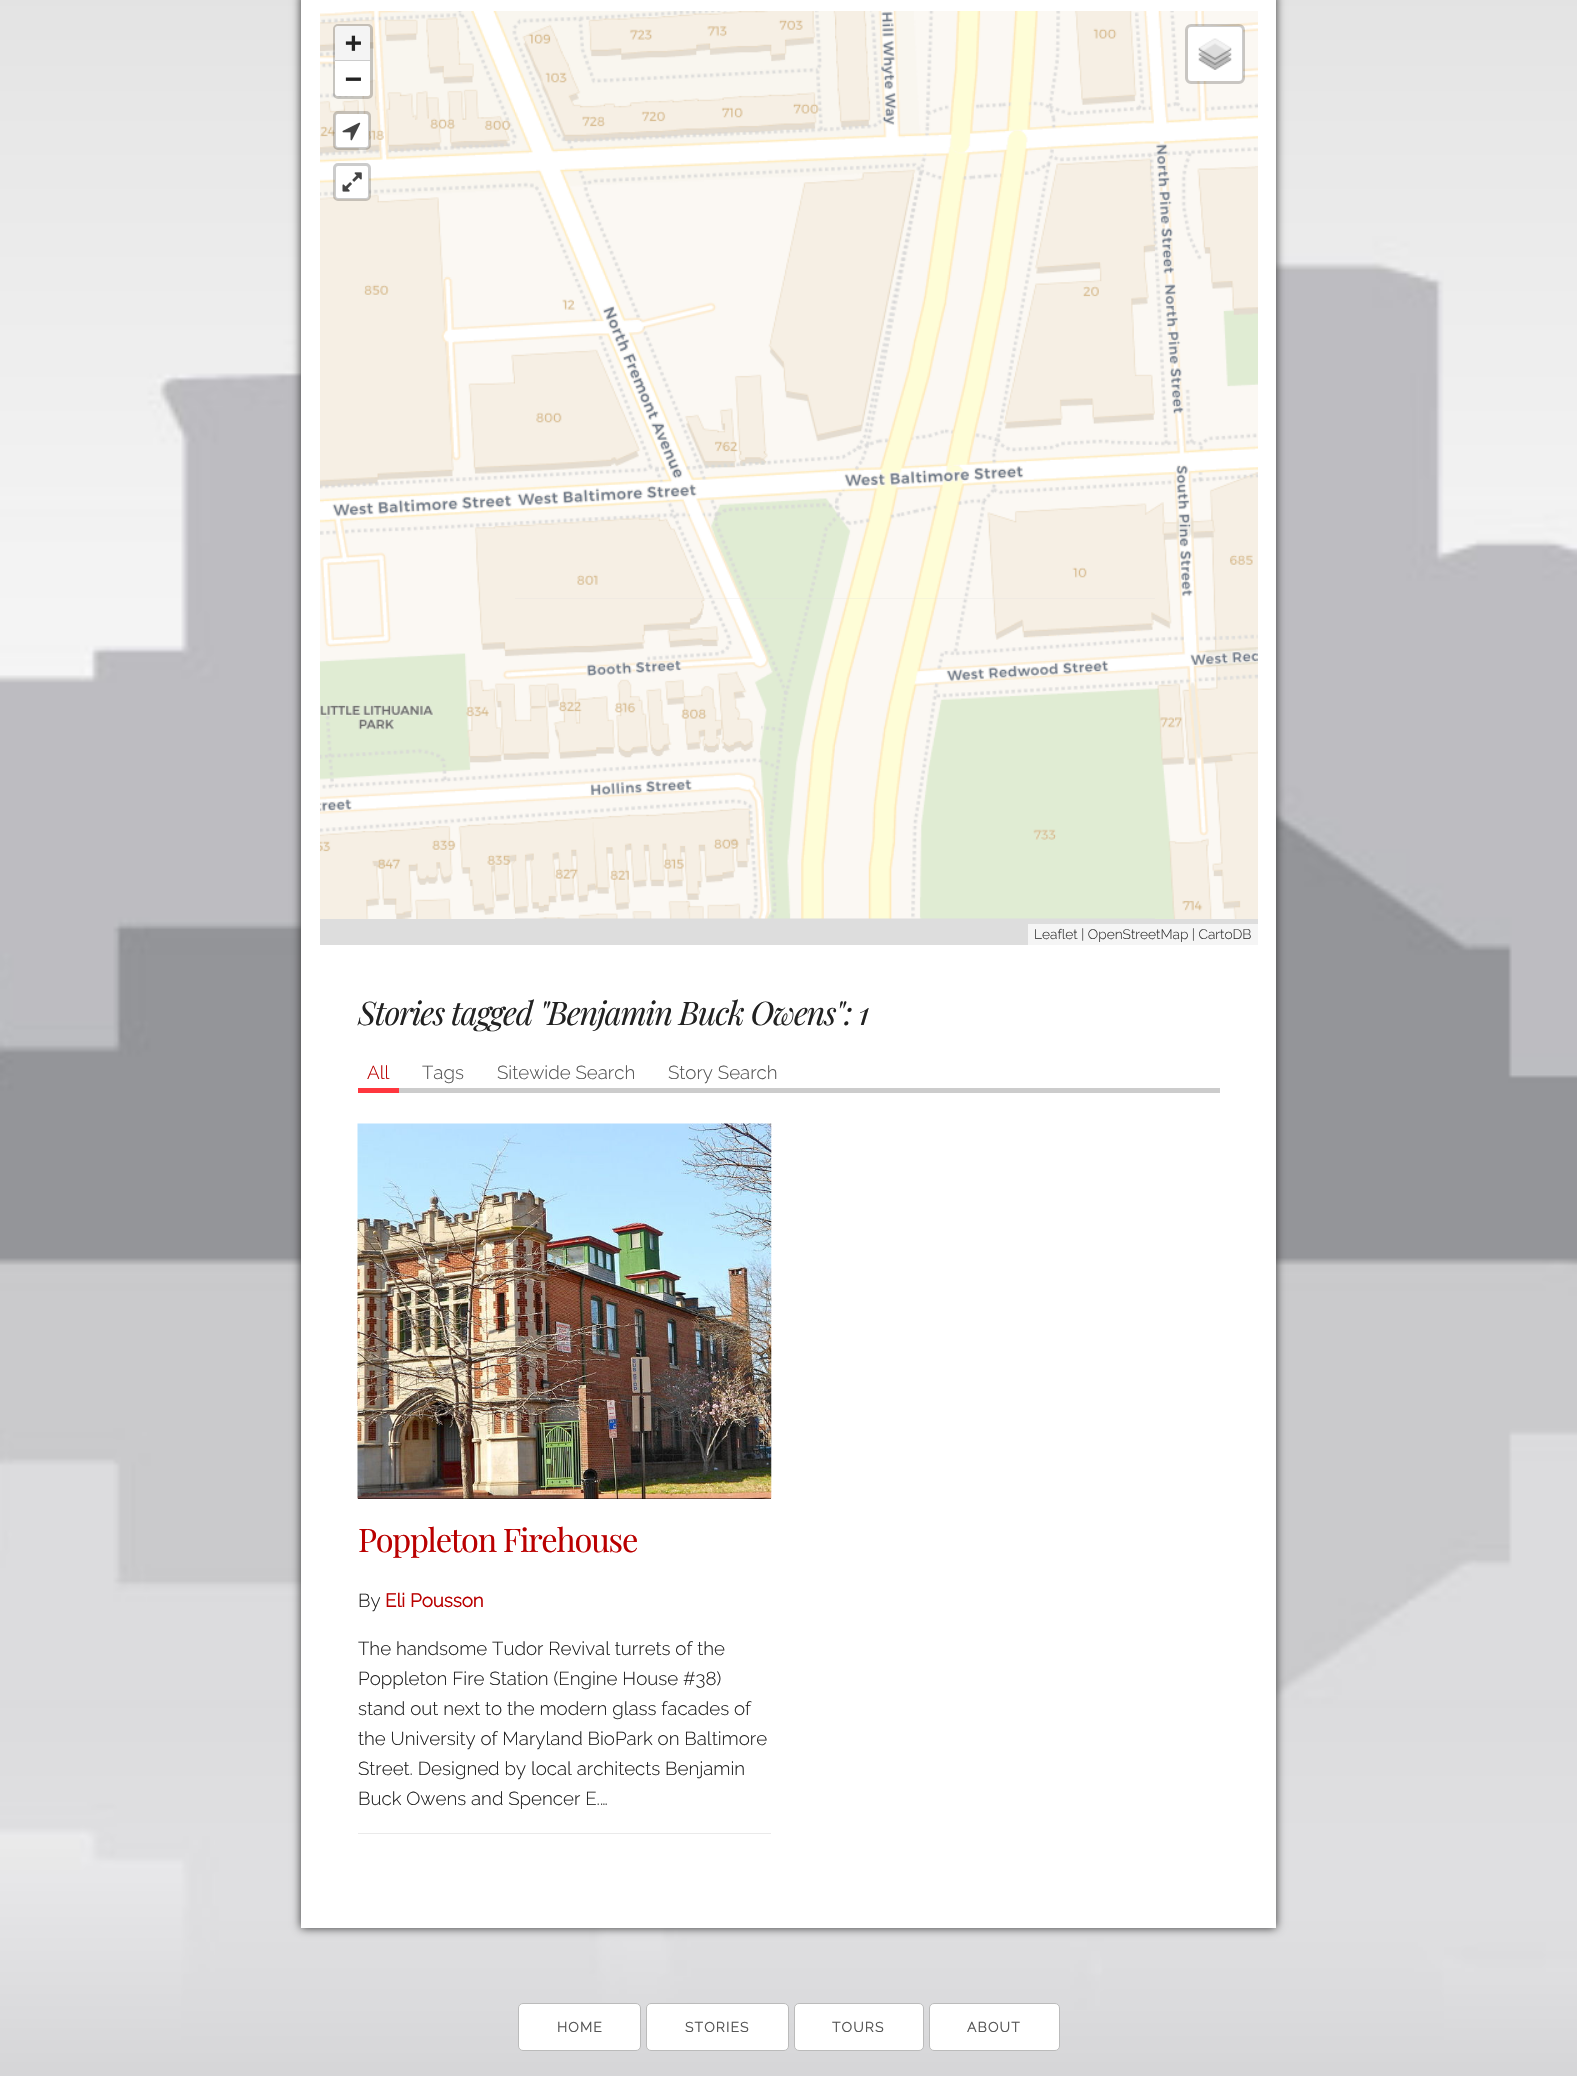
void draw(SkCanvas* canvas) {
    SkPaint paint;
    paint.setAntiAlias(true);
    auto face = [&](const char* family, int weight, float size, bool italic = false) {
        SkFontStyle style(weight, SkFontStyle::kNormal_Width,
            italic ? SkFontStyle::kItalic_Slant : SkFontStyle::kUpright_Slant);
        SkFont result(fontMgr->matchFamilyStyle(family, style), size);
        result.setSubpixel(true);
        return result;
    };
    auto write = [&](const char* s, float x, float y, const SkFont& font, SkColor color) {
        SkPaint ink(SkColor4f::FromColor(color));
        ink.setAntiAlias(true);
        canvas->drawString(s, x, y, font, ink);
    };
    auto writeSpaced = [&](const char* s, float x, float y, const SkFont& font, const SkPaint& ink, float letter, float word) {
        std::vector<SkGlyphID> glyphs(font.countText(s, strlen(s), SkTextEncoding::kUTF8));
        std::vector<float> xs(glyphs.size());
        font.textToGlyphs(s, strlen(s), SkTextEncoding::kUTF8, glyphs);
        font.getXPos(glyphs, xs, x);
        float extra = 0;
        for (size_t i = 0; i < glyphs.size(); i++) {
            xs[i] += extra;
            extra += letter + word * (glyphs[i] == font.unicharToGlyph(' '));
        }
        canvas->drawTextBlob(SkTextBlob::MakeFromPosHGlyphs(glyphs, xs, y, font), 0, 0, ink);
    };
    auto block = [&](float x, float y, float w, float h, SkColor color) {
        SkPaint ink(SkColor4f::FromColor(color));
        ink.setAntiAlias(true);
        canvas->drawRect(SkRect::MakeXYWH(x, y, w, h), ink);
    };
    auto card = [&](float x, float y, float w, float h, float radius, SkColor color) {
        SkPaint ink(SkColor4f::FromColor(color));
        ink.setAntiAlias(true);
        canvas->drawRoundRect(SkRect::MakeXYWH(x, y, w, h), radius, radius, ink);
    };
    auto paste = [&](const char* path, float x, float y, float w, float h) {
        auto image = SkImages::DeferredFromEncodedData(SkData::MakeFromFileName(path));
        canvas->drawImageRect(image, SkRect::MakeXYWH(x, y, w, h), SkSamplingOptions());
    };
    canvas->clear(SK_ColorWHITE);
    paste("pic1.png", 0, 0, 1577, 2076);
    paint.setColor(SkColorSetRGB(51, 51, 51));
    paint.setMaskFilter(SkMaskFilter::MakeBlur(kNormal_SkBlurStyle, 4.5f));
    canvas->drawRect(SkRect::MakeXYWH(301, -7, 975, 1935), paint);
    paint.setMaskFilter(nullptr);
    block(301, 0, 975, 1928, SK_ColorWHITE);
    block(320, 598, 938, 347, SkColorSetRGB(221, 221, 221));
    paste("pic2.png", 320, 11, 195, 268);
    paste("pic3.png", 515, 11, 320, 268);
    paste("pic4.png", 835, 11, 320, 268);
    paste("pic5.png", 1155, 11, 103, 268);
    paste("pic6.png", 320, 279, 195, 320);
    paste("pic7.png", 515, 279, 320, 320);
    paste("pic8.png", 835, 279, 320, 320);
    paste("pic9.png", 1155, 279, 103, 320);
    paste("pic10.png", 320, 598, 195, 321);
    paste("pic11.png", 515, 598, 320, 321);
    paste("pic12.png", 835, 598, 320, 321);
    paste("pic13.png", 1155, 599, 103, 320);
    paint.setStyle(SkPaint::kStroke_Style);
    paint.setStrokeWidth(3);
    paint.setColor(SkColorSetARGB(51, 0, 0, 0));
    canvas->drawRoundRect(SkRect::MakeXYWH(334.5f, 25.5f, 37, 72), 3.5f, 3.5f, paint);
    paint.setStyle(SkPaint::kFill_Style);
    paint.setColor(SkColorSetRGB(244, 244, 244));
    canvas->drawPath(SkPathBuilder().moveTo(337.5f, 26).lineTo(367.5f, 26).cubicTo(369, 26, 370, 27, 370, 28.5f).lineTo(370, 61).lineTo(335, 61).lineTo(335, 28.5f).cubicTo(335, 27, 336, 26, 337.5f, 26).close().detach(), paint);
    block(335, 60, 35, 1, SkColorSetRGB(204, 204, 204));
    auto kFont1 = face("DejaVu Sans Mono", 700, 28);
    write("+", 345, 52, kFont1, SkColorSetRGB(34, 34, 34));
    paint.setColor(SK_ColorWHITE);
    canvas->drawPath(SkPathBuilder().moveTo(335, 61).lineTo(370, 61).lineTo(370, 93.5f).cubicTo(370, 95, 369, 96, 367.5f, 96).lineTo(337.5f, 96).cubicTo(336, 96, 335, 95, 335, 93.5f).close().detach(), paint);
    write("−", 345, 88, kFont1, SkColorSetRGB(34, 34, 34));
    card(335, 114, 34, 34, 2.5f, SK_ColorWHITE);
    paint.setStyle(SkPaint::kStroke_Style);
    paint.setColor(SkColorSetARGB(51, 0, 0, 0));
    canvas->drawRoundRect(SkRect::MakeXYWH(334.5f, 112.5f, 35, 36), 3.5f, 3.5f, paint);
    paste("pic14.png", 342, 122, 19, 19);
    card(335, 165, 34, 34, 2.5f, SK_ColorWHITE);
    canvas->drawRoundRect(SkRect::MakeXYWH(334.5f, 164.5f, 35, 35), 3.5f, 3.5f, paint);
    paste("pic15.png", 342, 172, 20, 20);
    card(1188, 26, 55, 55, 4, SK_ColorWHITE);
    canvas->drawRoundRect(SkRect::MakeXYWH(1186.5f, 25.5f, 57, 57), 4.5f, 4.5f, paint);
    paste("pic16.png", 1198, 38, 34, 32);
    block(1028, 924, 230, 21, SkColorSetRGB(245, 245, 245));
    auto kFont2 = face("Raleway", 100, 13.75f);
    write("Leaflet | OpenStreetMap | CartoDB", 1034, 939, kFont2, SkColorSetRGB(51, 51, 51));
    auto kFont3 = face("Playfair Display", 400, 32.5f, true);
    paint.setStyle(SkPaint::kFill_Style);
    paint.setColor(SkColorSetRGB(34, 34, 34));
    writeSpaced("Stories tagged \"Benjamin Buck Owens\": 1", 358, 1025, kFont3, paint, -1.25f, 0);
    block(399, 1088, 821, 5, SkColorSetRGB(204, 204, 204));
    auto kFont4 = face("Raleway", 100, 18.75f);
    write("All", 367, 1079, kFont4, SkColorSetRGB(186, 0, 0));
    block(358, 1088, 41, 5, SkColorSetRGB(255, 54, 62));
    write("Tags", 422, 1079, kFont4, SkColorSetRGB(85, 85, 85));
    write("Sitewide Search", 497, 1079, kFont4, SkColorSetRGB(85, 85, 85));
    write("Story Search", 668, 1079, kFont4, SkColorSetRGB(85, 85, 85));
    block(358, 1833, 413, 1, SkColorSetRGB(234, 234, 234));
    block(358, 1498, 413, 1, SK_ColorBLACK);
    paste("pic17.png", 357, 1123, 415, 376);
    auto kFont5 = face("Playfair Display", 400, 32.5f);
    paint.setColor(SkColorSetRGB(186, 0, 0));
    writeSpaced("Poppleton Firehouse", 358, 1552, kFont5, paint, -1.25f, 0);
    write("By", 358, 1607, kFont4, SkColorSetRGB(34, 34, 34));
    auto kFont6 = face("Raleway", 700, 18.75f);
    write("Eli Pousson", 385, 1607, kFont6, SkColorSetRGB(186, 0, 0));
    write("The handsome Tudor Revival turrets of the", 358, 1655, kFont4, SkColorSetRGB(34, 34, 34));
    write("Poppleton Fire Station (Engine House #38)", 358, 1685, kFont4, SkColorSetRGB(34, 34, 34));
    write("stand out next to the modern glass facades of", 358, 1715, kFont4, SkColorSetRGB(34, 34, 34));
    write("the University of Maryland BioPark on Baltimore", 358, 1745, kFont4, SkColorSetRGB(34, 34, 34));
    write("Street. Designed by local architects Benjamin", 358, 1775, kFont4, SkColorSetRGB(34, 34, 34));
    write("Buck Owens and Spencer E.…", 358, 1805, kFont4, SkColorSetRGB(34, 34, 34));
    paint.setColor(SK_ColorWHITE);
    canvas->drawRoundRect(SkRect::MakeXYWH(518.5f, 2003.5f, 122, 47), 4.5f, 4.5f, paint);
    paint.setStyle(SkPaint::kStroke_Style);
    paint.setStrokeWidth(1);
    paint.setColor(SkColorSetRGB(187, 187, 187));
    canvas->drawRoundRect(SkRect::MakeXYWH(518.5f, 2003.5f, 122, 47), 4.5f, 4.5f, paint);
    auto kFont7 = face("Raleway", 700, 13.75f);
    paint.setStyle(SkPaint::kFill_Style);
    paint.setColor(SkColorSetRGB(85, 85, 85));
    writeSpaced("HOME", 557, 2032, kFont7, paint, 1.25f, 0);
    paint.setColor(SK_ColorWHITE);
    canvas->drawRoundRect(SkRect::MakeXYWH(646.5f, 2003.5f, 142, 47), 4.5f, 4.5f, paint);
    paint.setStyle(SkPaint::kStroke_Style);
    paint.setColor(SkColorSetRGB(187, 187, 187));
    canvas->drawRoundRect(SkRect::MakeXYWH(646.5f, 2003.5f, 142, 47), 4.5f, 4.5f, paint);
    paint.setStyle(SkPaint::kFill_Style);
    paint.setColor(SkColorSetRGB(85, 85, 85));
    writeSpaced("STORIES", 685, 2032, kFont7, paint, 1.25f, 0);
    paint.setColor(SK_ColorWHITE);
    canvas->drawRoundRect(SkRect::MakeXYWH(794.5f, 2003.5f, 129, 47), 4.5f, 4.5f, paint);
    paint.setStyle(SkPaint::kStroke_Style);
    paint.setColor(SkColorSetRGB(187, 187, 187));
    canvas->drawRoundRect(SkRect::MakeXYWH(794.5f, 2003.5f, 129, 47), 4.5f, 4.5f, paint);
    paint.setStyle(SkPaint::kFill_Style);
    paint.setColor(SkColorSetRGB(85, 85, 85));
    writeSpaced("TOURS", 832, 2032, kFont7, paint, 1.25f, 0);
    paint.setColor(SK_ColorWHITE);
    canvas->drawRoundRect(SkRect::MakeXYWH(929.5f, 2003.5f, 130, 47), 4.5f, 4.5f, paint);
    paint.setStyle(SkPaint::kStroke_Style);
    paint.setColor(SkColorSetRGB(187, 187, 187));
    canvas->drawRoundRect(SkRect::MakeXYWH(929.5f, 2003.5f, 130, 47), 4.5f, 4.5f, paint);
    paint.setStyle(SkPaint::kFill_Style);
    paint.setColor(SkColorSetRGB(85, 85, 85));
    writeSpaced("ABOUT", 967, 2032, kFont7, paint, 1.25f, 0);
}
